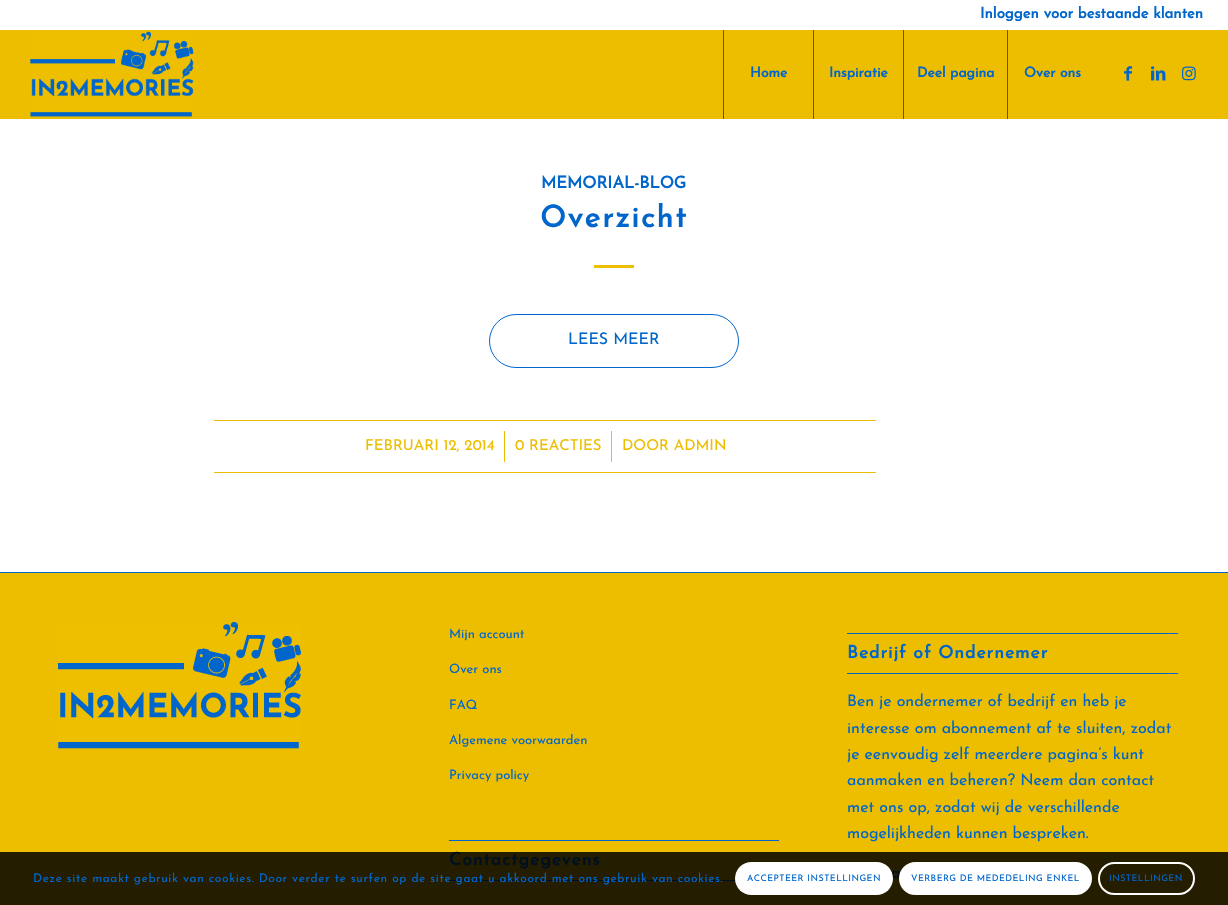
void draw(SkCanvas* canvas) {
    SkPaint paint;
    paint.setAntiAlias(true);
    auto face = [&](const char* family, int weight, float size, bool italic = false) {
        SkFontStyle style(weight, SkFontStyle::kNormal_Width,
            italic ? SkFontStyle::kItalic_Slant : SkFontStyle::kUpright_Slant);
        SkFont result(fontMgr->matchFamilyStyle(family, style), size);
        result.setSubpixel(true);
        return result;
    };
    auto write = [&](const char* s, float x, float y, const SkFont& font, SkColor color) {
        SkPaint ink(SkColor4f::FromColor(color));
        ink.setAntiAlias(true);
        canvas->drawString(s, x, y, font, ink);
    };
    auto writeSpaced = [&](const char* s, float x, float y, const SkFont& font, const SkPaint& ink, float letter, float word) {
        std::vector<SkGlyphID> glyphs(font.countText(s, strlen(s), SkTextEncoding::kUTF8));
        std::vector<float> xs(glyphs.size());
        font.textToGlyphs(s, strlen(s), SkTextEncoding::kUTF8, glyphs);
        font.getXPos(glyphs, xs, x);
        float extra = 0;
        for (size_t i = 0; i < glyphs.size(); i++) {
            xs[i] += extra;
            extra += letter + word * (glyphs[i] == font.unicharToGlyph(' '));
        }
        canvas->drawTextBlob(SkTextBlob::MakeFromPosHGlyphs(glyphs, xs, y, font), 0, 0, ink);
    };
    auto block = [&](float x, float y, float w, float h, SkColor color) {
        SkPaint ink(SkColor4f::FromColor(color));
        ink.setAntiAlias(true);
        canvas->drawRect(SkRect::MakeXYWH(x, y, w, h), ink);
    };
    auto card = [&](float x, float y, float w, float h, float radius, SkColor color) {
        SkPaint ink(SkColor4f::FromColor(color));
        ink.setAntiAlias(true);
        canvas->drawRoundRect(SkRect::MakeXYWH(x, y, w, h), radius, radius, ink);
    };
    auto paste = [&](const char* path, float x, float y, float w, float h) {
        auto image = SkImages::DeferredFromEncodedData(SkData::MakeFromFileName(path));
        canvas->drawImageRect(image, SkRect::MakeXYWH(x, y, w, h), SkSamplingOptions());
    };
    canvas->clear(SkColorSetRGB(237, 190, 0));
    block(723, 29, 1, 90, SkColorSetRGB(0, 102, 204));
    block(813, 29, 1, 90, SkColorSetRGB(0, 102, 204));
    block(903, 29, 1, 90, SkColorSetRGB(0, 102, 204));
    block(1007, 29, 1, 90, SkColorSetRGB(0, 102, 204));
    block(0, 0, 1228, 30, SK_ColorWHITE);
    auto kFont1 = face("Josefin Sans", 700, 15);
    write("Inloggen voor bestaande klanten", 980, 18, kFont1, SkColorSetRGB(0, 102, 204));
    paste("pic1.png", 30, 31, 164, 86);
    auto kFont2 = face("Josefin Sans", 700, 14);
    write("Home", 750, 77, kFont2, SkColorSetRGB(0, 102, 204));
    write("Inspiratie", 829, 77, kFont2, SkColorSetRGB(0, 102, 204));
    write("Deel pagina", 917, 77, kFont2, SkColorSetRGB(0, 102, 204));
    write("Over ons", 1024, 77, kFont2, SkColorSetRGB(0, 102, 204));
    paste("pic2.png", 1124, 66, 8, 15);
    paste("pic3.png", 1151, 66, 15, 15);
    paste("pic4.png", 1182, 66, 14, 15);
    block(0, 852, 1228, 53, SkColorSetRGB(36, 29, 0));
    block(0, 119, 1228, 453, SK_ColorWHITE);
    auto kFont3 = face("Josefin Sans", 700, 16.5f);
    write("MEMORIAL-BLOG", 541, 188, kFont3, SkColorSetRGB(0, 102, 204));
    auto kFont4 = face("Josefin Sans", 700, 30);
    paint.setColor(SkColorSetRGB(0, 102, 204));
    writeSpaced("Overzicht", 540, 227, kFont4, paint, 2, 0);
    block(594, 265, 40, 3, SkColorSetRGB(237, 190, 0));
    paint.setStyle(SkPaint::kStroke_Style);
    paint.setStrokeWidth(1);
    canvas->drawRoundRect(SkRect::MakeXYWH(489.5f, 314.5f, 249, 53), 26.5f, 26.5f, paint);
    auto kFont5 = face("Josefin Sans", 100, 16);
    write("LEES MEER", 568, 344, kFont5, SkColorSetRGB(0, 102, 204));
    block(214, 420, 662, 1, SkColorSetRGB(237, 190, 0));
    block(214, 472, 662, 1, SkColorSetRGB(237, 190, 0));
    auto kFont6 = face("Josefin Sans", 100, 15);
    write("FEBRUARI 12, 2014", 365, 450, kFont6, SkColorSetRGB(237, 190, 0));
    block(504, 431, 1, 31, SkColorSetRGB(237, 190, 0));
    write("0 REACTIES", 515, 450, kFont6, SkColorSetRGB(237, 190, 0));
    block(611, 431, 1, 31, SkColorSetRGB(237, 190, 0));
    write("DOOR ADMIN", 622, 450, kFont6, SkColorSetRGB(237, 190, 0));
    block(0, 572, 1228, 1, SkColorSetRGB(0, 102, 204));
    paste("pic5.png", 58, 622, 243, 127);
    auto kFont7 = face("Josefin Sans", 100, 13);
    write("Mijn account", 449, 638, kFont7, SkColorSetRGB(0, 102, 204));
    write("Over ons", 449, 673, kFont7, SkColorSetRGB(0, 102, 204));
    write("FAQ", 449, 709, kFont7, SkColorSetRGB(0, 102, 204));
    write("Algemene voorwaarden", 449, 744, kFont7, SkColorSetRGB(0, 102, 204));
    write("Privacy policy", 449, 779, kFont7, SkColorSetRGB(0, 102, 204));
    block(449, 840, 330, 1, SkColorSetRGB(0, 102, 204));
    block(449, 880, 287, 1, SkColorSetRGB(0, 15, 31));
    auto kFont8 = face("Josefin Sans", 700, 17.6f);
    paint.setStyle(SkPaint::kFill_Style);
    paint.setColor(SkColorSetRGB(0, 15, 31));
    writeSpaced("Contactgegevens", 449, 865, kFont8, paint, 1, 0);
    block(847, 633, 331, 1, SkColorSetRGB(0, 102, 204));
    block(847, 673, 331, 1, SkColorSetRGB(0, 102, 204));
    paint.setColor(SkColorSetRGB(0, 102, 204));
    writeSpaced("Bedrijf of Ondernemer", 847, 658, kFont8, paint, 1, 0);
    write("Ben je ondernemer of bedrijf en heb je", 847, 706, kFont5, SkColorSetRGB(0, 102, 204));
    write("interesse om abonnement af te sluiten, zodat", 847, 733, kFont5, SkColorSetRGB(0, 102, 204));
    write("je eenvoudig zelf meerdere pagina’s kunt", 847, 759, kFont5, SkColorSetRGB(0, 102, 204));
    write("aanmaken en beheren? Neem dan contact", 847, 785, kFont5, SkColorSetRGB(0, 102, 204));
    write("met ons op, zodat wij de verschillende", 847, 812, kFont5, SkColorSetRGB(0, 102, 204));
    write("mogelijkheden kunnen bespreken.", 847, 838, kFont5, SkColorSetRGB(0, 102, 204));
    auto kFont9 = face("Josefin Sans", 700, 16);
    write("a", 891, 878, kFont9, SkColorSetRGB(0, 15, 31));
    auto kFont10 = face("Josefin Sans", 100, 12);
    writeSpaced("Deze site maakt gebruik van cookies. Door verder te surfen op de site gaat u akkoord met ons gebruik van cookies.", 33, 882, kFont10, paint, 0.6f, 0);
    card(735, 862, 158, 33, 16.5f, SK_ColorWHITE);
    auto kFont11 = face("Josefin Sans", 100, 9);
    writeSpaced("ACCEPTEER INSTELLINGEN", 747, 881, kFont11, paint, 0.45f, 0);
    paint.setColor(SK_ColorWHITE);
    canvas->drawRoundRect(SkRect::MakeXYWH(900, 863, 191, 31), 15.5f, 15.5f, paint);
    paint.setStyle(SkPaint::kStroke_Style);
    paint.setStrokeWidth(2);
    canvas->drawRoundRect(SkRect::MakeXYWH(900, 863, 191, 31), 15.5f, 15.5f, paint);
    paint.setStyle(SkPaint::kFill_Style);
    paint.setColor(SkColorSetRGB(0, 102, 204));
    writeSpaced("VERBERG DE MEDEDELING ENKEL", 911, 881, kFont11, paint, 0.45f, 0);
    paint.setStyle(SkPaint::kStroke_Style);
    paint.setColor(SK_ColorWHITE);
    canvas->drawRoundRect(SkRect::MakeXYWH(1099, 863, 95, 31), 15.5f, 15.5f, paint);
    paint.setStyle(SkPaint::kFill_Style);
    paint.setColor(SkColorSetRGB(0, 102, 204));
    writeSpaced("INSTELLINGEN", 1109, 881, kFont11, paint, 0.45f, 0);
}
